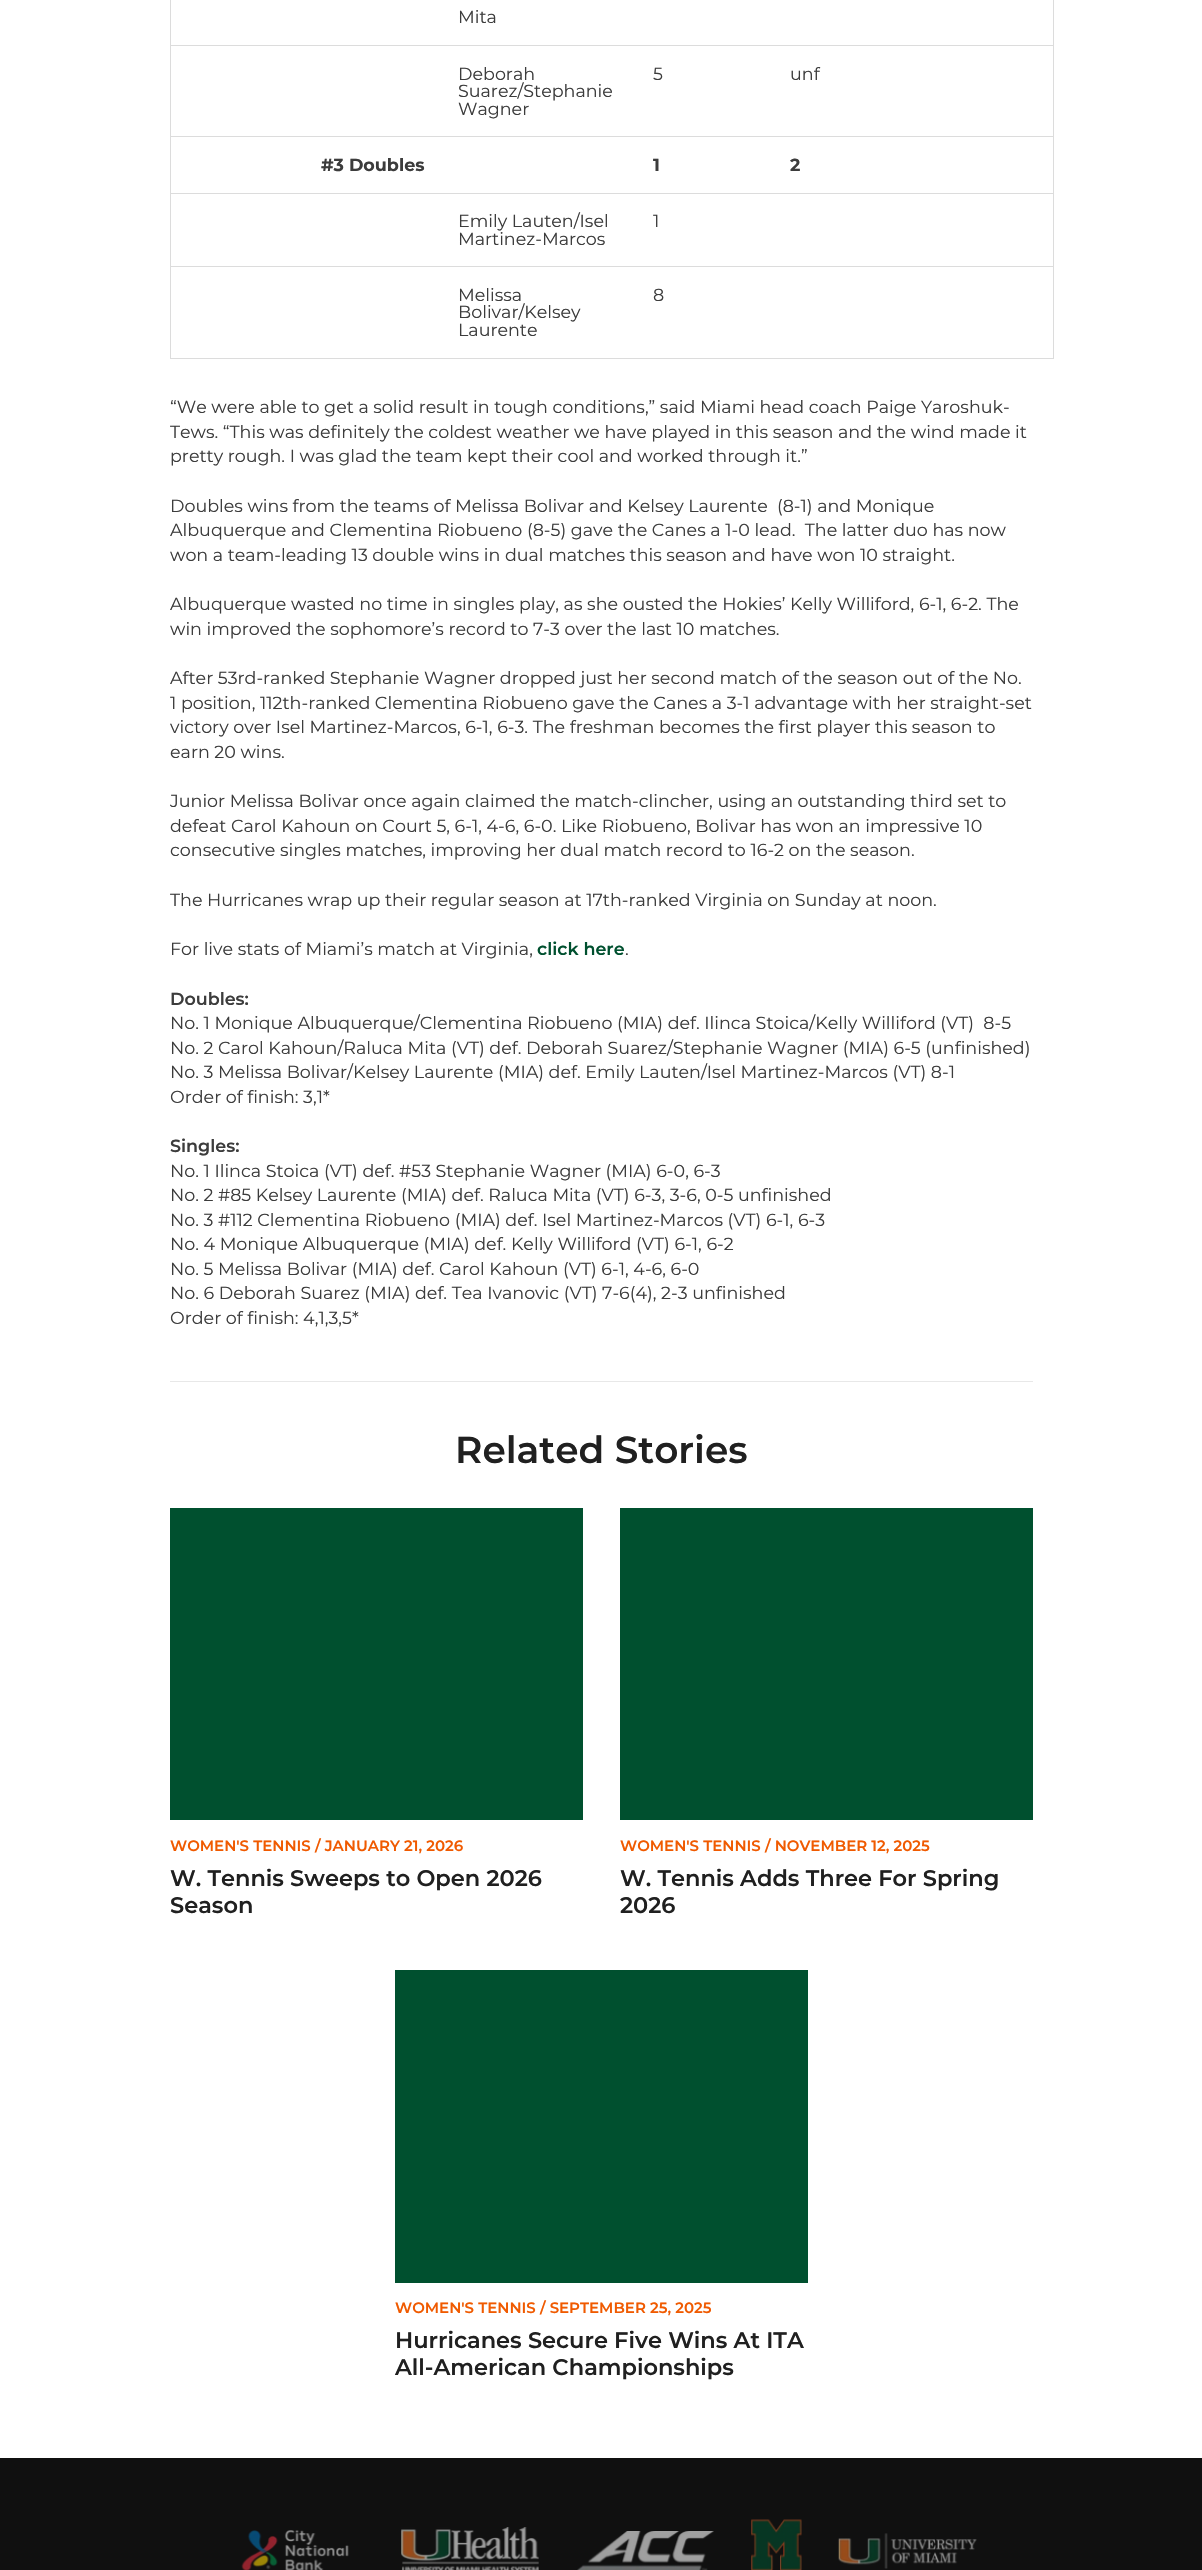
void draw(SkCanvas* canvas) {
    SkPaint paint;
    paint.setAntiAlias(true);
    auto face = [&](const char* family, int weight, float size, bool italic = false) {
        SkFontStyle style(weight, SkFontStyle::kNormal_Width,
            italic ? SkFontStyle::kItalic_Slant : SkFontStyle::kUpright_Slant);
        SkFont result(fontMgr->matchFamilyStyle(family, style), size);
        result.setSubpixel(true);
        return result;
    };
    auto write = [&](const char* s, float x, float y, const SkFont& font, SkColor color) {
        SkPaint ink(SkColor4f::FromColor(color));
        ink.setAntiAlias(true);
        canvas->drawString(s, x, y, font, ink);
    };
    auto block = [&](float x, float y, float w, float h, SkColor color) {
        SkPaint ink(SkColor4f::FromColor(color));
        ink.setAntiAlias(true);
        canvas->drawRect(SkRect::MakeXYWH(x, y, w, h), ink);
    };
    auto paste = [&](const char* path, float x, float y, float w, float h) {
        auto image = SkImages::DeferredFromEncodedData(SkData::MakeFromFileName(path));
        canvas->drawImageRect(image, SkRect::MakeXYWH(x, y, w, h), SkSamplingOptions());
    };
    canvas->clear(SK_ColorWHITE);
    auto kFont1 = face("Montserrat", 400, 17.5f);
    write("Mita", 458, 23, kFont1, SkColorSetRGB(60, 60, 60));
    block(170, 45, 884, 1, SkColorSetRGB(220, 220, 220));
    block(170, 136, 884, 1, SkColorSetRGB(220, 220, 220));
    block(170, 193, 884, 1, SkColorSetRGB(220, 220, 220));
    block(170, 266, 884, 1, SkColorSetRGB(220, 220, 220));
    block(1053, 266, 1, 93, SkColorSetRGB(220, 220, 220));
    block(1053, 193, 1, 75, SkColorSetRGB(220, 220, 220));
    block(1053, 136, 1, 58, SkColorSetRGB(220, 220, 220));
    block(1053, 0, 1, 138, SkColorSetRGB(220, 220, 220));
    block(170, 358, 884, 1, SkColorSetRGB(220, 220, 220));
    block(170, 266, 1, 93, SkColorSetRGB(220, 220, 220));
    block(170, 193, 1, 75, SkColorSetRGB(220, 220, 220));
    block(170, 136, 1, 58, SkColorSetRGB(220, 220, 220));
    block(170, 0, 1, 138, SkColorSetRGB(220, 220, 220));
    write("Deborah", 458, 80, kFont1, SkColorSetRGB(60, 60, 60));
    write("Suarez/Stephanie", 458, 97, kFont1, SkColorSetRGB(60, 60, 60));
    write("Wagner", 458, 115, kFont1, SkColorSetRGB(60, 60, 60));
    write("5", 653, 80, kFont1, SkColorSetRGB(60, 60, 60));
    write("unf", 790, 80, kFont1, SkColorSetRGB(60, 60, 60));
    auto kFont2 = face("Montserrat", 700, 17.5f);
    write("#3 Doubles", 321, 171, kFont2, SkColorSetRGB(60, 60, 60));
    write("1", 653, 171, kFont2, SkColorSetRGB(60, 60, 60));
    write("2", 790, 171, kFont2, SkColorSetRGB(60, 60, 60));
    write("Emily Lauten/Isel", 458, 227, kFont1, SkColorSetRGB(60, 60, 60));
    write("Martinez-Marcos", 458, 245, kFont1, SkColorSetRGB(60, 60, 60));
    write("1", 653, 227, kFont1, SkColorSetRGB(60, 60, 60));
    write("Melissa", 458, 301, kFont1, SkColorSetRGB(60, 60, 60));
    write("Bolivar/Kelsey", 458, 318, kFont1, SkColorSetRGB(60, 60, 60));
    write("Laurente", 458, 336, kFont1, SkColorSetRGB(60, 60, 60));
    write("8", 653, 301, kFont1, SkColorSetRGB(60, 60, 60));
    write("“We were able to get a solid result in tough conditions,” said Miami head coach Paige Yaroshuk-", 170, 413, kFont1, SkColorSetRGB(60, 60, 60));
    write("Tews. “This was definitely the coldest weather we have played in this season and the wind made it", 170, 438, kFont1, SkColorSetRGB(60, 60, 60));
    write("pretty rough. I was glad the team kept their cool and worked through it.”", 170, 462, kFont1, SkColorSetRGB(60, 60, 60));
    write("Doubles wins from the teams of Melissa Bolivar and Kelsey Laurente  (8-1) and Monique", 170, 512, kFont1, SkColorSetRGB(60, 60, 60));
    write("Albuquerque and Clementina Riobueno (8-5) gave the Canes a 1-0 lead.  The latter duo has now", 170, 536, kFont1, SkColorSetRGB(60, 60, 60));
    write("won a team-leading 13 double wins in dual matches this season and have won 10 straight.", 170, 561, kFont1, SkColorSetRGB(60, 60, 60));
    write("Albuquerque wasted no time in singles play, as she ousted the Hokies’ Kelly Williford, 6-1, 6-2. The", 170, 610, kFont1, SkColorSetRGB(60, 60, 60));
    write("win improved the sophomore’s record to 7-3 over the last 10 matches.", 170, 635, kFont1, SkColorSetRGB(60, 60, 60));
    write("After 53rd-ranked Stephanie Wagner dropped just her second match of the season out of the No.", 170, 684, kFont1, SkColorSetRGB(60, 60, 60));
    write("1 position, 112th-ranked Clementina Riobueno gave the Canes a 3-1 advantage with her straight-set", 170, 709, kFont1, SkColorSetRGB(60, 60, 60));
    write("victory over Isel Martinez-Marcos, 6-1, 6-3. The freshman becomes the first player this season to", 170, 733, kFont1, SkColorSetRGB(60, 60, 60));
    write("earn 20 wins.", 170, 758, kFont1, SkColorSetRGB(60, 60, 60));
    write("Junior Melissa Bolivar once again claimed the match-clincher, using an outstanding third set to", 170, 807, kFont1, SkColorSetRGB(60, 60, 60));
    write("defeat Carol Kahoun on Court 5, 6-1, 4-6, 6-0. Like Riobueno, Bolivar has won an impressive 10", 170, 832, kFont1, SkColorSetRGB(60, 60, 60));
    write("consecutive singles matches, improving her dual match record to 16-2 on the season.", 170, 856, kFont1, SkColorSetRGB(60, 60, 60));
    write("The Hurricanes wrap up their regular season at 17th-ranked Virginia on Sunday at noon.", 170, 906, kFont1, SkColorSetRGB(60, 60, 60));
    write("For live stats of Miami’s match at Virginia,", 170, 955, kFont1, SkColorSetRGB(60, 60, 60));
    auto kFont3 = face("Montserrat", 600, 17.5f);
    write("click here", 537, 955, kFont3, SkColorSetRGB(0, 80, 47));
    write(".", 625, 955, kFont1, SkColorSetRGB(60, 60, 60));
    write("Doubles:", 170, 1005, kFont3, SkColorSetRGB(60, 60, 60));
    write("No. 1 Monique Albuquerque/Clementina Riobueno (MIA) def. Ilinca Stoica/Kelly Williford (VT)  8-5", 170, 1029, kFont1, SkColorSetRGB(60, 60, 60));
    write("No. 2 Carol Kahoun/Raluca Mita (VT) def. Deborah Suarez/Stephanie Wagner (MIA) 6-5 (unfinished)", 170, 1054, kFont1, SkColorSetRGB(60, 60, 60));
    write("No. 3 Melissa Bolivar/Kelsey Laurente (MIA) def. Emily Lauten/Isel Martinez-Marcos (VT) 8-1", 170, 1078, kFont1, SkColorSetRGB(60, 60, 60));
    write("Order of finish: 3,1*", 170, 1103, kFont1, SkColorSetRGB(60, 60, 60));
    write("Singles:", 170, 1152, kFont3, SkColorSetRGB(60, 60, 60));
    write("No. 1 Ilinca Stoica (VT) def. #53 Stephanie Wagner (MIA) 6-0, 6-3", 170, 1177, kFont1, SkColorSetRGB(60, 60, 60));
    write("No. 2 #85 Kelsey Laurente (MIA) def. Raluca Mita (VT) 6-3, 3-6, 0-5 unfinished", 170, 1201, kFont1, SkColorSetRGB(60, 60, 60));
    write("No. 3 #112 Clementina Riobueno (MIA) def. Isel Martinez-Marcos (VT) 6-1, 6-3", 170, 1226, kFont1, SkColorSetRGB(60, 60, 60));
    write("No. 4 Monique Albuquerque (MIA) def. Kelly Williford (VT) 6-1, 6-2", 170, 1250, kFont1, SkColorSetRGB(60, 60, 60));
    write("No. 5 Melissa Bolivar (MIA) def. Carol Kahoun (VT) 6-1, 4-6, 6-0", 170, 1275, kFont1, SkColorSetRGB(60, 60, 60));
    write("No. 6 Deborah Suarez (MIA) def. Tea Ivanovic (VT) 7-6(4), 2-3 unfinished", 170, 1299, kFont1, SkColorSetRGB(60, 60, 60));
    write("Order of finish: 4,1,3,5*", 170, 1324, kFont1, SkColorSetRGB(60, 60, 60));
    block(170, 1381, 863, 1, SkColorSetRGB(232, 232, 232));
    auto kFont4 = face("Montserrat", 600, 37.5f);
    write("Related Stories", 455, 1463, kFont4, SkColorSetRGB(32, 32, 32));
    block(170, 1508, 413, 312, SkColorSetRGB(0, 80, 47));
    auto kFont5 = face("Montserrat", 600, 15);
    write("WOMEN'S TENNIS / JANUARY 21, 2026", 170, 1851, kFont5, SkColorSetRGB(240, 90, 0));
    auto kFont6 = face("Montserrat", 600, 22.5f);
    write("W. Tennis Sweeps to Open 2026", 170, 1886, kFont6, SkColorSetRGB(32, 32, 32));
    write("Season", 170, 1913, kFont6, SkColorSetRGB(32, 32, 32));
    block(620, 1508, 413, 312, SkColorSetRGB(0, 80, 47));
    write("WOMEN'S TENNIS / NOVEMBER 12, 2025", 620, 1851, kFont5, SkColorSetRGB(240, 90, 0));
    write("W. Tennis Adds Three For Spring", 620, 1886, kFont6, SkColorSetRGB(32, 32, 32));
    write("2026", 620, 1913, kFont6, SkColorSetRGB(32, 32, 32));
    block(395, 1970, 413, 313, SkColorSetRGB(0, 80, 47));
    write("WOMEN'S TENNIS / SEPTEMBER 25, 2025", 395, 2313, kFont5, SkColorSetRGB(240, 90, 0));
    write("Hurricanes Secure Five Wins At ITA", 395, 2348, kFont6, SkColorSetRGB(32, 32, 32));
    write("All-American Championships", 395, 2375, kFont6, SkColorSetRGB(32, 32, 32));
    block(0, 2458, 1202, 112, SkColorSetRGB(16, 16, 16));
    paste("pic1.png", 241, 2530, 108, 40);
    paste("pic2.png", 401, 2527, 138, 43);
    paste("pic3.png", 577, 2531, 137, 39);
    paste("pic4.png", 751, 2519, 51, 51);
    paste("pic5.png", 838, 2533, 139, 36);
}
